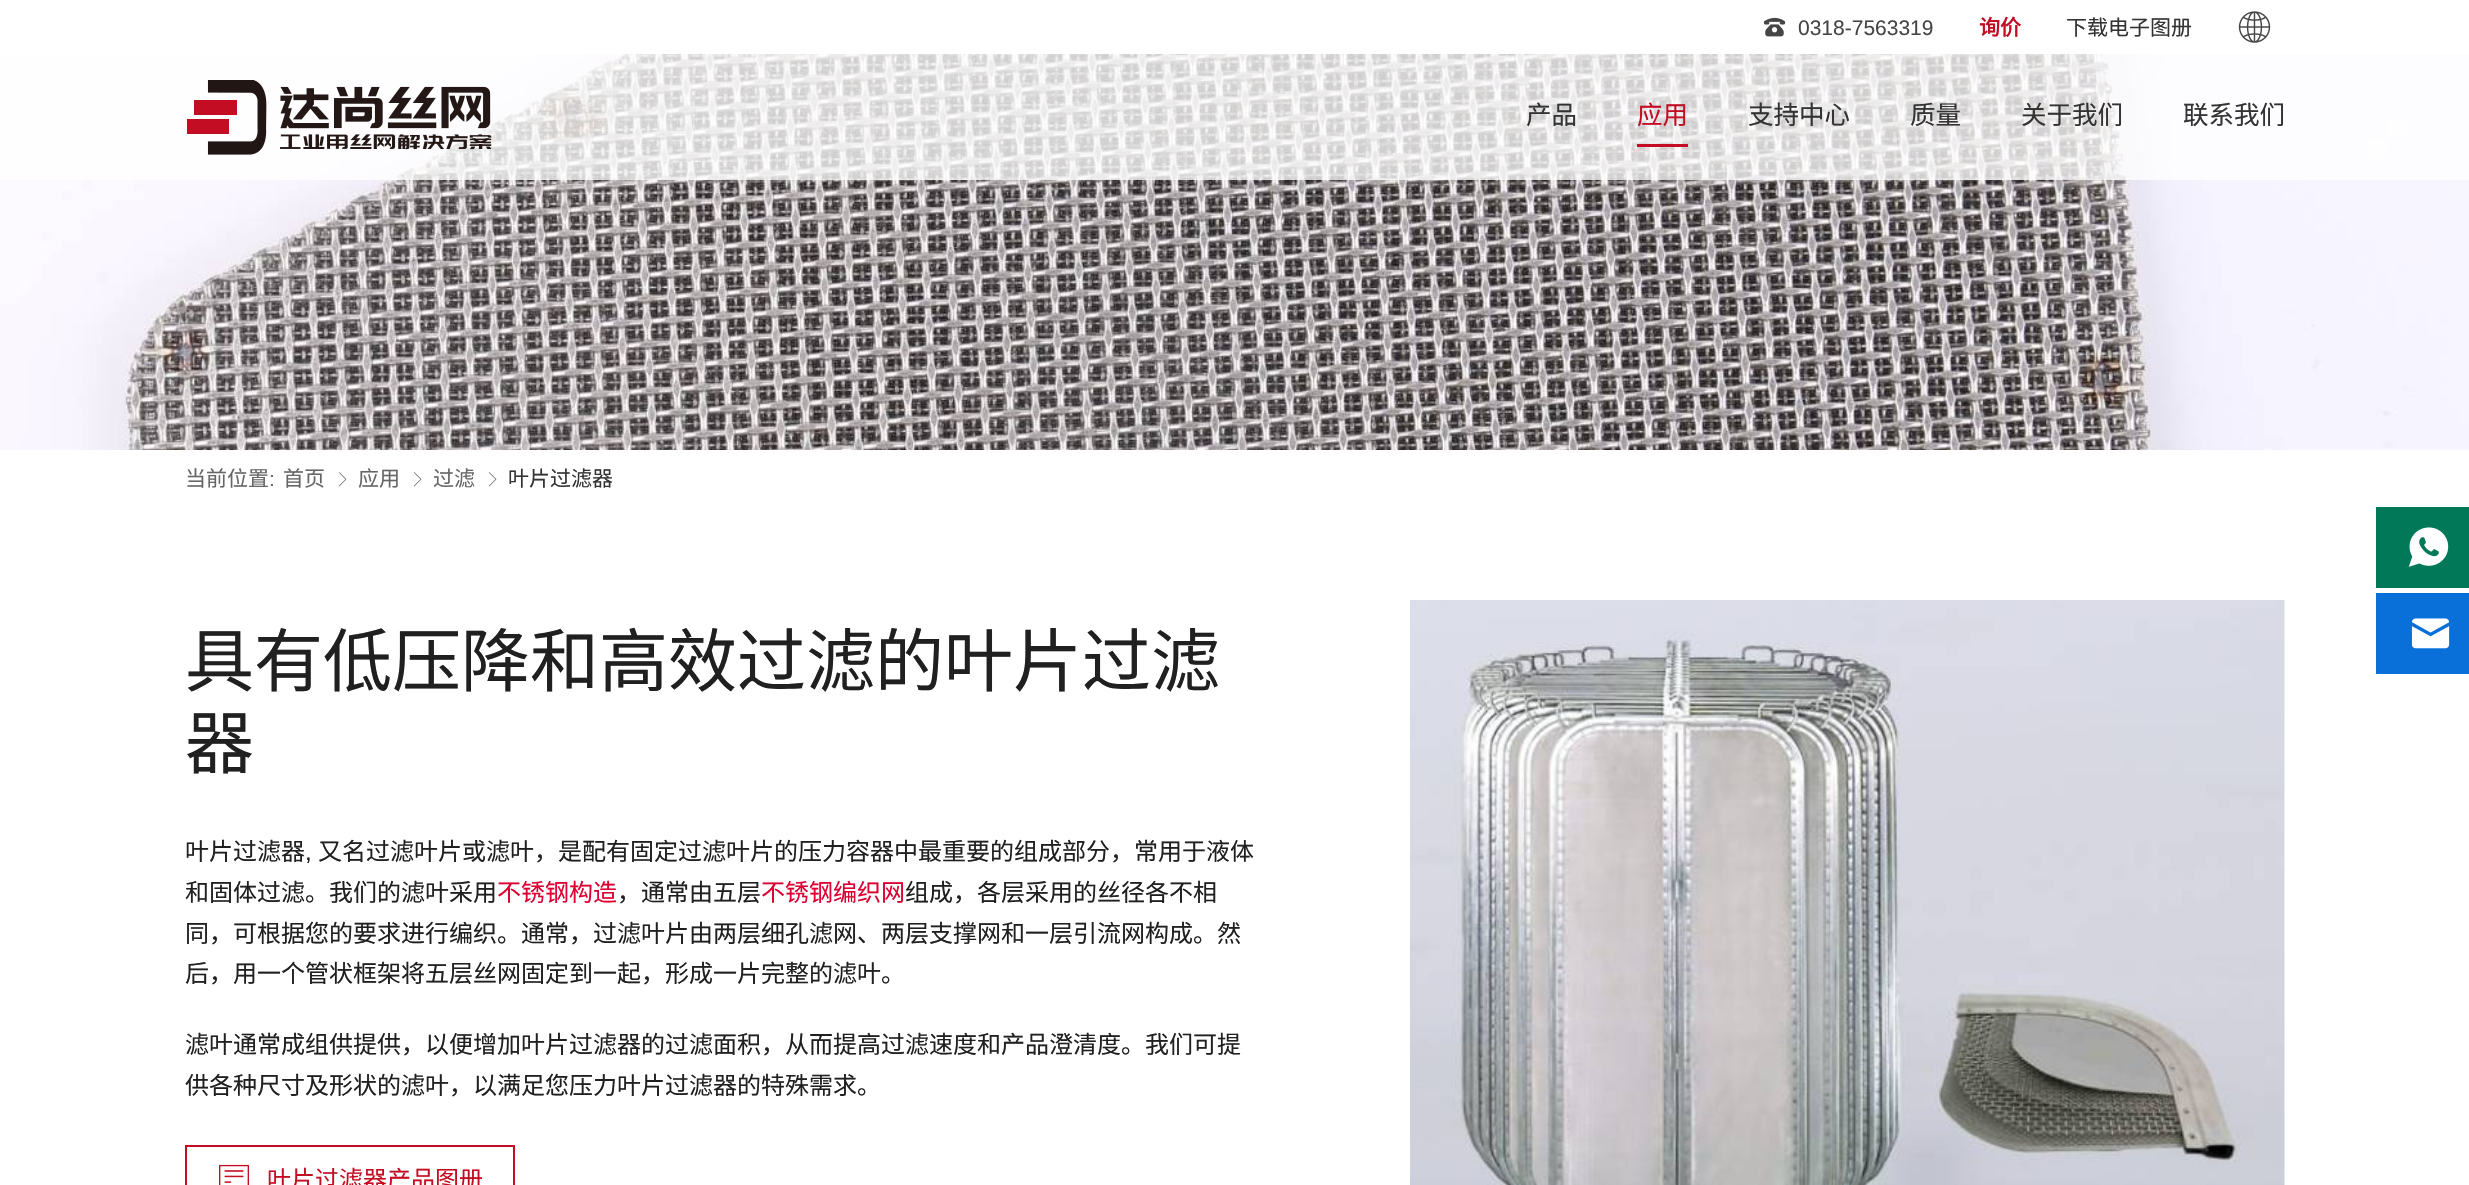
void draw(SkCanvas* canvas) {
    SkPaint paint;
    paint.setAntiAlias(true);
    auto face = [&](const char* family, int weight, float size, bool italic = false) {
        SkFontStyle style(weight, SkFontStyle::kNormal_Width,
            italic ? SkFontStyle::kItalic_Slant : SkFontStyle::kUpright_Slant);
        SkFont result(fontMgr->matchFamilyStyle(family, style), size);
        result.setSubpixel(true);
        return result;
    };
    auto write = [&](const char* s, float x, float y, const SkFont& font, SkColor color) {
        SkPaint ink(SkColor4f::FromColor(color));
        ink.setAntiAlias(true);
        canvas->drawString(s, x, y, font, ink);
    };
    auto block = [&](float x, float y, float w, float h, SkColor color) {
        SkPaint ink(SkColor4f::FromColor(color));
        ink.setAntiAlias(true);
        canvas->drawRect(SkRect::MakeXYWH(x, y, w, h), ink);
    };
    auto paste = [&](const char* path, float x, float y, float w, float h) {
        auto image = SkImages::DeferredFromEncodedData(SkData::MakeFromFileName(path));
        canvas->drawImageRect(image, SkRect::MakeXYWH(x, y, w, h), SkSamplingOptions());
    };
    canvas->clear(SK_ColorWHITE);
    paste("pic1.png", 1763, 17, 23, 20);
    auto kFont1 = face("Liberation Sans", 400, 21);
    write("0318-7563319", 1798, 35, kFont1, SkColorSetRGB(69, 69, 69));
    auto kFont2 = face("Noto Sans CJK SC", 700, 21);
    write("询价", 1979, 35, kFont2, SkColorSetRGB(195, 13, 35));
    auto kFont3 = face("Noto Sans CJK SC", 400, 21);
    write("下载电子图册", 2066, 35, kFont3, SkColorSetRGB(51, 51, 51));
    paste("pic2.png", 2238, 11, 33, 32);
    paste("pic4.png", 0, 54, 2469, 396);
    block(0, 54, 2469, 126, SkColorSetARGB(196, 255, 255, 255));
    paste("pic3.png", 187, 80, 305, 75);
    auto kFont4 = face("Noto Sans CJK SC", 400, 25.5f);
    write("产品", 1526, 124, kFont4, SkColorSetRGB(51, 51, 51));
    write("应用", 1637, 124, kFont4, SkColorSetRGB(195, 13, 35));
    block(1637, 144, 51, 3, SkColorSetRGB(195, 13, 35));
    write("支持中心", 1748, 124, kFont4, SkColorSetRGB(51, 51, 51));
    write("质量", 1910, 124, kFont4, SkColorSetRGB(51, 51, 51));
    write("关于我们", 2021, 124, kFont4, SkColorSetRGB(51, 51, 51));
    write("联系我们", 2183, 124, kFont4, SkColorSetRGB(51, 51, 51));
    write("当前位置", 185, 486, kFont3, SkColorSetRGB(102, 102, 102));
    write(":", 269, 486, kFont1, SkColorSetRGB(102, 102, 102));
    write("首页", 283, 486, kFont3, SkColorSetRGB(102, 102, 102));
    paste("pic5.png", 338, 472, 9, 15);
    write("应用", 358, 486, kFont3, SkColorSetRGB(102, 102, 102));
    paste("pic5.png", 413, 472, 9, 15);
    write("过滤", 433, 486, kFont3, SkColorSetRGB(102, 102, 102));
    paste("pic5.png", 488, 472, 9, 15);
    write("叶片过滤器", 508, 486, kFont3, SkColorSetRGB(51, 51, 51));
    block(2376, 507, 93, 81, SkColorSetRGB(1, 121, 89));
    paste("pic6.png", 2408, 527, 41, 40);
    block(2376, 593, 93, 81, SkColorSetRGB(8, 112, 216));
    paste("pic7.png", 2411, 618, 39, 31);
    auto kFont5 = face("Noto Sans CJK SC", 400, 69);
    write("具有低压降和高效过滤的叶片过滤", 185, 686, kFont5, SkColorSetRGB(32, 32, 32));
    write("器", 185, 768, kFont5, SkColorSetRGB(32, 32, 32));
    auto kFont6 = face("Noto Sans CJK SC", 400, 24);
    write("叶片过滤器", 185, 860, kFont6, SkColorSetRGB(32, 32, 32));
    auto kFont7 = face("Liberation Sans", 400, 24);
    write(",", 305, 860, kFont7, SkColorSetRGB(32, 32, 32));
    write("又名过滤叶片或滤叶，是配有固定过滤叶片的压力容器中最重要的组成部分，常用于液体", 318, 860, kFont6, SkColorSetRGB(32, 32, 32));
    write("和固体过滤。我们的滤叶采用", 185, 901, kFont6, SkColorSetRGB(32, 32, 32));
    write("不锈钢构造", 497, 901, kFont6, SkColorSetRGB(219, 0, 49));
    write("，通常由五层", 617, 901, kFont6, SkColorSetRGB(32, 32, 32));
    write("不锈钢编织网", 761, 901, kFont6, SkColorSetRGB(219, 0, 49));
    write("组成，各层采用的丝径各不相", 905, 901, kFont6, SkColorSetRGB(32, 32, 32));
    write("同，可根据您的要求进行编织。通常，过滤叶片由两层细孔滤网、两层支撑网和一层引流网构成。然", 185, 942, kFont6, SkColorSetRGB(32, 32, 32));
    write("后，用一个管状框架将五层丝网固定到一起，形成一片完整的滤叶。", 185, 982, kFont6, SkColorSetRGB(32, 32, 32));
    write("滤叶通常成组供提供，以便增加叶片过滤器的过滤面积，从而提高过滤速度和产品澄清度。我们可提", 185, 1053, kFont6, SkColorSetRGB(32, 32, 32));
    write("供各种尺寸及形状的滤叶，以满足您压力叶片过滤器的特殊需求。", 185, 1094, kFont6, SkColorSetRGB(32, 32, 32));
    paint.setStyle(SkPaint::kStroke_Style);
    paint.setStrokeWidth(2);
    paint.setColor(SkColorSetRGB(195, 13, 35));
    canvas->drawRect(SkRect::MakeXYWH(186, 1146, 328, 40), paint);
    paste("pic8.png", 219, 1164, 30, 21);
    write("叶片过滤器产品图册", 267, 1188, kFont6, SkColorSetRGB(195, 13, 35));
    paste("pic9.png", 1410, 600, 875, 585);
}
